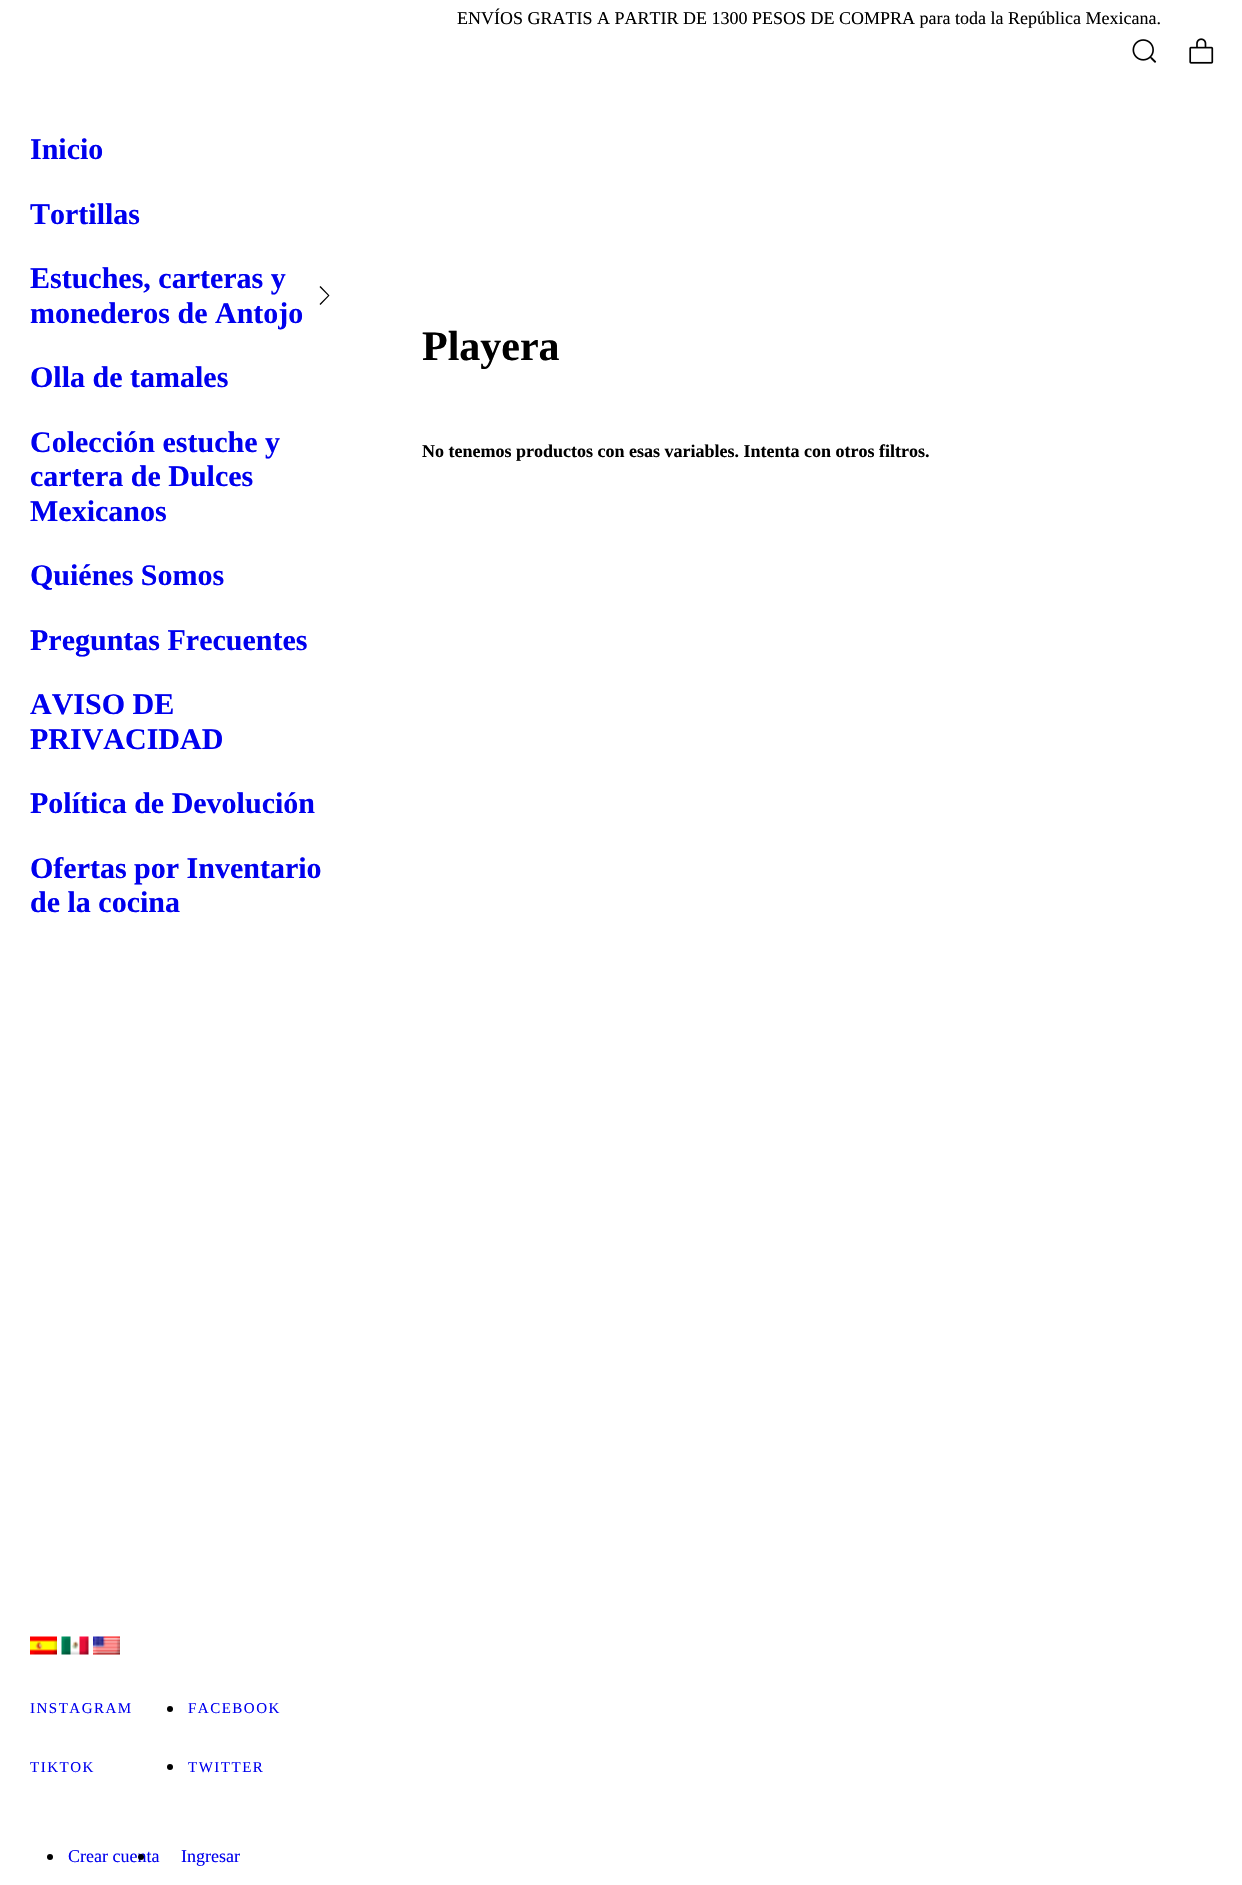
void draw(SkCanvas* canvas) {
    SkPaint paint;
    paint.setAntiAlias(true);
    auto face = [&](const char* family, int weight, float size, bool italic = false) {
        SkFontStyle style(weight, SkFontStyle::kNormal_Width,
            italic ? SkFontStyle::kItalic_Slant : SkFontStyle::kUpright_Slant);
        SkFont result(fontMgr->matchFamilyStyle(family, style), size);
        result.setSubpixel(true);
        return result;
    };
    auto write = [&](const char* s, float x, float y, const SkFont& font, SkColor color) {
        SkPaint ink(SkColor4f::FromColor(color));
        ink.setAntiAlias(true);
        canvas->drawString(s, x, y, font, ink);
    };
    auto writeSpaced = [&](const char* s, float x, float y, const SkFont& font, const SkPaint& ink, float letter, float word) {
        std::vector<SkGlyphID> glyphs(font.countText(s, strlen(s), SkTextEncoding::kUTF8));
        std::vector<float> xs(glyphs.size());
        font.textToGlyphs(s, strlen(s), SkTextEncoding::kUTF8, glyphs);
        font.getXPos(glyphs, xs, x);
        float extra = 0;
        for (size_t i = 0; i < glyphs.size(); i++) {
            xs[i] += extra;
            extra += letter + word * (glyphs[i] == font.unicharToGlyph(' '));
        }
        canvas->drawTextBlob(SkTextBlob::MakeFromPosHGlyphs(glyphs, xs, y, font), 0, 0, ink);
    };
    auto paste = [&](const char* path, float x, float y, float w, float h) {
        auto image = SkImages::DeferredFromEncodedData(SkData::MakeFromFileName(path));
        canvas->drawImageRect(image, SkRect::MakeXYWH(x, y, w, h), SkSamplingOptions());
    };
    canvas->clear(SK_ColorWHITE);
    auto kFont1 = face("Liberation Serif", 400, 18);
    write("ENVÍOS GRATIS A PARTIR DE 1300 PESOS DE COMPRA para toda la República Mexicana.", 457, 24, kFont1, SK_ColorBLACK);
    auto kFont2 = face("Liberation Serif", 700, 42);
    write("Playera", 422, 360, kFont2, SK_ColorBLACK);
    auto kFont3 = face("Liberation Serif", 700, 18);
    write("No tenemos productos con esas variables. Intenta con otros filtros.", 422, 457, kFont3, SK_ColorBLACK);
    paste("pic1.png", 1132, 39, 25, 24);
    paste("pic2.png", 1189, 38, 25, 26);
    auto kFont4 = face("Liberation Serif", 700, 30);
    write("Inicio", 30, 159, kFont4, SkColorSetRGB(0, 0, 238));
    write("Tortillas", 30, 224, kFont4, SkColorSetRGB(0, 0, 238));
    write("Estuches, carteras y", 30, 288, kFont4, SkColorSetRGB(0, 0, 238));
    paint.setColor(SK_ColorBLACK);
    canvas->drawPath(SkPathBuilder().moveTo(320.5f, 305).lineTo(319.5f, 304).lineTo(328, 295.5f).lineTo(319.5f, 287).lineTo(320.5f, 286).lineTo(329.5f, 295.5f).close().detach(), paint);
    write("monederos de Antojo", 30, 323, kFont4, SkColorSetRGB(0, 0, 238));
    write("Olla de tamales", 30, 387, kFont4, SkColorSetRGB(0, 0, 238));
    write("Colección estuche y", 30, 452, kFont4, SkColorSetRGB(0, 0, 238));
    write("cartera de Dulces", 30, 486, kFont4, SkColorSetRGB(0, 0, 238));
    write("Mexicanos", 30, 521, kFont4, SkColorSetRGB(0, 0, 238));
    write("Quiénes Somos", 30, 585, kFont4, SkColorSetRGB(0, 0, 238));
    write("Preguntas Frecuentes", 30, 650, kFont4, SkColorSetRGB(0, 0, 238));
    write("AVISO DE", 30, 714, kFont4, SkColorSetRGB(0, 0, 238));
    write("PRIVACIDAD", 30, 749, kFont4, SkColorSetRGB(0, 0, 238));
    write("Política de Devolución", 30, 813, kFont4, SkColorSetRGB(0, 0, 238));
    write("Ofertas por Inventario", 30, 878, kFont4, SkColorSetRGB(0, 0, 238));
    write("de la cocina", 30, 912, kFont4, SkColorSetRGB(0, 0, 238));
    paste("pic3.png", 30, 1636, 27, 19);
    paste("pic4.png", 61, 1636, 28, 19);
    paste("pic5.png", 93, 1636, 27, 19);
    auto kFont5 = face("Liberation Serif", 400, 15);
    paint.setColor(SkColorSetRGB(0, 0, 238));
    writeSpaced("INSTAGRAM", 30, 1713, kFont5, paint, 1.5f, 0);
    paint.setColor(SK_ColorBLACK);
    canvas->drawCircle(170, 1709, 3, paint);
    paint.setColor(SkColorSetRGB(0, 0, 238));
    writeSpaced("FACEBOOK", 188, 1713, kFont5, paint, 1.5f, 0);
    writeSpaced("TIKTOK", 30, 1772, kFont5, paint, 1.5f, 0);
    paint.setColor(SK_ColorBLACK);
    canvas->drawCircle(170, 1767, 3, paint);
    paint.setColor(SkColorSetRGB(0, 0, 238));
    writeSpaced("TWITTER", 188, 1772, kFont5, paint, 1.5f, 0);
    paint.setColor(SK_ColorBLACK);
    canvas->drawCircle(50, 1857, 3, paint);
    write("Crear cuenta", 68, 1862, kFont1, SkColorSetRGB(0, 0, 238));
    canvas->drawCircle(141, 1857, 3, paint);
    write("Ingresar", 181, 1862, kFont1, SkColorSetRGB(0, 0, 238));
}
